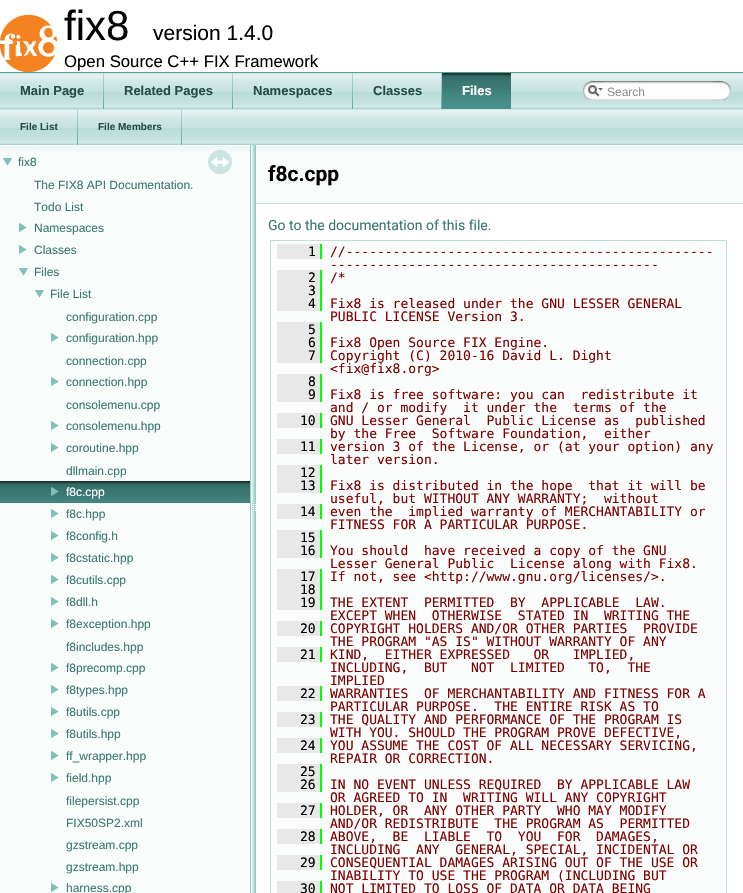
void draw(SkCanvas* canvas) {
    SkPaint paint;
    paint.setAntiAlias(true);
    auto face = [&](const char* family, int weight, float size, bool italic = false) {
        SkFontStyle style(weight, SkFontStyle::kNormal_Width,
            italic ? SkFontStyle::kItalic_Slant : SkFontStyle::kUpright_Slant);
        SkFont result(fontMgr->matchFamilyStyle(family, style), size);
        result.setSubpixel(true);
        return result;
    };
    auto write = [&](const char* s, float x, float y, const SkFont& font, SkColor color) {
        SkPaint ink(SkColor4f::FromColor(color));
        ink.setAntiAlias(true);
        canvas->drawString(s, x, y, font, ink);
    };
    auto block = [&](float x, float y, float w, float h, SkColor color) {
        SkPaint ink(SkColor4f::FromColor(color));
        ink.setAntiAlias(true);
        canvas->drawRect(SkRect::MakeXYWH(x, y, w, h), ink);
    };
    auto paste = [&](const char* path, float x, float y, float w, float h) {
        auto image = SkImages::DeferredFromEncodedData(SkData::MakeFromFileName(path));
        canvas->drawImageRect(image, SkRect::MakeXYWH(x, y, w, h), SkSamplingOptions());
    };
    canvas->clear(SK_ColorWHITE);
    block(0, 72, 743, 1, SkColorSetRGB(80, 163, 154));
    paste("pic1.png", 0, 15, 57, 57);
    auto kFont1 = face("Liberation Sans", 400, 42);
    write("fix8", 64, 40, kFont1, SK_ColorBLACK);
    auto kFont2 = face("Liberation Sans", 400, 21);
    write("version 1.4.0", 153, 40, kFont2, SK_ColorBLACK);
    auto kFont3 = face("Liberation Sans", 400, 16.75f);
    write("Open Source C++ FIX Framework", 64, 67, kFont3, SK_ColorBLACK);
    paste("pic2.png", 0, 73, 743, 36);
    paste("pic3.png", 103, 73, 1, 36);
    auto kFont4 = face("Liberation Sans", 700, 13);
    write("Main Page", 20, 95, kFont4, SkColorSetRGB(37, 76, 72));
    paste("pic3.png", 232, 73, 1, 36);
    write("Related Pages", 124, 95, kFont4, SkColorSetRGB(37, 76, 72));
    paste("pic3.png", 352, 73, 1, 36);
    write("Namespaces", 253, 95, kFont4, SkColorSetRGB(37, 76, 72));
    paste("pic3.png", 441, 73, 1, 36);
    write("Classes", 373, 95, kFont4, SkColorSetRGB(37, 76, 72));
    paste("pic4.png", 442, 73, 69, 36);
    write("Files", 462, 95, kFont4, SK_ColorWHITE);
    paste("pic5.png", 583, 81, 20, 19);
    paste("pic6.png", 588, 85, 15, 12);
    paste("pic7.png", 603, 81, 110, 19);
    auto kFont5 = face("Liberation Sans", 400, 12);
    write("Search", 607, 96, kFont5, SkColorSetRGB(144, 144, 144));
    paste("pic8.png", 713, 81, 18, 19);
    paste("pic2.png", 0, 109, 743, 36);
    paste("pic3.png", 77, 109, 1, 36);
    auto kFont6 = face("Liberation Sans", 700, 10);
    write("File List", 20, 130, kFont6, SkColorSetRGB(37, 76, 72));
    paste("pic3.png", 181, 109, 1, 36);
    write("File Members", 98, 130, kFont6, SkColorSetRGB(37, 76, 72));
    block(0, 152, 250, 741, SkColorSetRGB(248, 252, 251));
    paste("pic9.png", 0, 145, 250, 7);
    paste("pic10.png", 3, 158, 9, 8);
    write("fix8", 18, 166, kFont5, SkColorSetRGB(59, 120, 114));
    write("The FIX8 API Documentation.", 34, 189, kFont5, SkColorSetRGB(59, 120, 114));
    write("Todo List", 34, 211, kFont5, SkColorSetRGB(59, 120, 114));
    paste("pic11.png", 19, 223, 8, 9);
    write("Namespaces", 34, 232, kFont5, SkColorSetRGB(59, 120, 114));
    paste("pic11.png", 19, 245, 8, 9);
    write("Classes", 34, 254, kFont5, SkColorSetRGB(59, 120, 114));
    paste("pic10.png", 19, 268, 9, 8);
    write("Files", 34, 276, kFont5, SkColorSetRGB(59, 120, 114));
    paste("pic10.png", 35, 290, 9, 8);
    write("File List", 50, 298, kFont5, SkColorSetRGB(59, 120, 114));
    write("configuration.cpp", 66, 321, kFont5, SkColorSetRGB(59, 120, 114));
    paste("pic11.png", 51, 333, 8, 9);
    write("configuration.hpp", 66, 342, kFont5, SkColorSetRGB(59, 120, 114));
    write("connection.cpp", 66, 365, kFont5, SkColorSetRGB(59, 120, 114));
    paste("pic11.png", 51, 377, 8, 9);
    write("connection.hpp", 66, 386, kFont5, SkColorSetRGB(59, 120, 114));
    write("consolemenu.cpp", 66, 409, kFont5, SkColorSetRGB(59, 120, 114));
    paste("pic11.png", 51, 421, 8, 9);
    write("consolemenu.hpp", 66, 430, kFont5, SkColorSetRGB(59, 120, 114));
    paste("pic11.png", 51, 443, 8, 9);
    write("coroutine.hpp", 66, 452, kFont5, SkColorSetRGB(59, 120, 114));
    write("dllmain.cpp", 66, 475, kFont5, SkColorSetRGB(59, 120, 114));
    paste("pic12.png", 0, 481, 250, 22);
    paste("pic13.png", 51, 487, 8, 9);
    write("f8c.cpp", 66, 496, kFont5, SK_ColorWHITE);
    paste("pic11.png", 51, 509, 8, 9);
    write("f8c.hpp", 66, 518, kFont5, SkColorSetRGB(59, 120, 114));
    paste("pic11.png", 51, 531, 8, 9);
    write("f8config.h", 66, 540, kFont5, SkColorSetRGB(59, 120, 114));
    paste("pic11.png", 51, 553, 8, 9);
    write("f8cstatic.hpp", 66, 562, kFont5, SkColorSetRGB(59, 120, 114));
    paste("pic11.png", 51, 575, 8, 9);
    write("f8cutils.cpp", 66, 584, kFont5, SkColorSetRGB(59, 120, 114));
    paste("pic11.png", 51, 597, 8, 9);
    write("f8dll.h", 66, 606, kFont5, SkColorSetRGB(59, 120, 114));
    paste("pic11.png", 51, 619, 8, 9);
    write("f8exception.hpp", 66, 628, kFont5, SkColorSetRGB(59, 120, 114));
    write("f8includes.hpp", 66, 651, kFont5, SkColorSetRGB(59, 120, 114));
    paste("pic11.png", 51, 663, 8, 9);
    write("f8precomp.cpp", 66, 672, kFont5, SkColorSetRGB(59, 120, 114));
    paste("pic11.png", 51, 685, 8, 9);
    write("f8types.hpp", 66, 694, kFont5, SkColorSetRGB(59, 120, 114));
    paste("pic11.png", 51, 707, 8, 9);
    write("f8utils.cpp", 66, 716, kFont5, SkColorSetRGB(59, 120, 114));
    paste("pic11.png", 51, 729, 8, 9);
    write("f8utils.hpp", 66, 738, kFont5, SkColorSetRGB(59, 120, 114));
    paste("pic11.png", 51, 751, 8, 9);
    write("ff_wrapper.hpp", 66, 760, kFont5, SkColorSetRGB(59, 120, 114));
    paste("pic11.png", 51, 773, 8, 9);
    write("field.hpp", 66, 782, kFont5, SkColorSetRGB(59, 120, 114));
    write("filepersist.cpp", 66, 805, kFont5, SkColorSetRGB(59, 120, 114));
    write("FIX50SP2.xml", 66, 827, kFont5, SkColorSetRGB(59, 120, 114));
    write("gzstream.cpp", 66, 849, kFont5, SkColorSetRGB(59, 120, 114));
    write("gzstream.hpp", 66, 871, kFont5, SkColorSetRGB(59, 120, 114));
    paste("pic11.png", 51, 883, 8, 9);
    write("harness.cpp", 66, 892, kFont5, SkColorSetRGB(59, 120, 114));
    paste("pic14.png", 208, 150, 24, 24);
    paste("pic15.png", 250, 145, 6, 748);
    block(256, 152, 487, 51, SkColorSetRGB(248, 252, 251));
    paste("pic16.png", 256, 145, 487, 7);
    block(256, 203, 487, 1, SkColorSetRGB(192, 224, 221));
    auto kFont7 = face("Roboto", 700, 21);
    write("f8c.cpp", 268, 181, kFont7, SK_ColorBLACK);
    auto kFont8 = face("Roboto", 400, 14);
    write("Go to the documentation of this file.", 268, 230, kFont8, SkColorSetRGB(59, 120, 114));
    paint.setColor(SkColorSetRGB(251, 253, 253));
    canvas->drawRect(SkRect::MakeXYWH(270.5f, 240.5f, 456, 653), paint);
    paint.setStyle(SkPaint::kStroke_Style);
    paint.setStrokeWidth(1);
    paint.setColor(SkColorSetRGB(192, 224, 221));
    canvas->drawRect(SkRect::MakeXYWH(270.5f, 240.5f, 456, 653), paint);
    block(277, 244, 43, 15, SkColorSetRGB(232, 232, 232));
    auto kFont9 = face("DejaVu Sans Mono", 400, 13);
    write("1", 308, 256, kFont9, SK_ColorBLACK);
    block(320, 244, 2, 15, SkColorSetRGB(0, 255, 0));
    write("//-----------------------------------------------", 330, 256, kFont9, SkColorSetRGB(128, 0, 0));
    write("------------------------------------------", 330, 269, kFont9, SkColorSetRGB(128, 0, 0));
    block(277, 270, 43, 41, SkColorSetRGB(232, 232, 232));
    write("2", 308, 282, kFont9, SK_ColorBLACK);
    block(320, 270, 2, 41, SkColorSetRGB(0, 255, 0));
    write("/*", 330, 282, kFont9, SkColorSetRGB(128, 0, 0));
    write("3", 308, 295, kFont9, SK_ColorBLACK);
    write("4", 308, 308, kFont9, SK_ColorBLACK);
    write("Fix8 is released under the GNU LESSER GENERAL", 330, 308, kFont9, SkColorSetRGB(128, 0, 0));
    write("PUBLIC LICENSE Version 3.", 330, 321, kFont9, SkColorSetRGB(128, 0, 0));
    block(277, 322, 43, 41, SkColorSetRGB(232, 232, 232));
    write("5", 308, 334, kFont9, SK_ColorBLACK);
    block(320, 322, 2, 41, SkColorSetRGB(0, 255, 0));
    write("6", 308, 347, kFont9, SK_ColorBLACK);
    write("Fix8 Open Source FIX Engine.", 330, 347, kFont9, SkColorSetRGB(128, 0, 0));
    write("7", 308, 360, kFont9, SK_ColorBLACK);
    write("Copyright (C) 2010-16 David L. Dight", 330, 360, kFont9, SkColorSetRGB(128, 0, 0));
    write("<fix@fix8.org>", 330, 373, kFont9, SkColorSetRGB(128, 0, 0));
    block(277, 374, 43, 28, SkColorSetRGB(232, 232, 232));
    write("8", 308, 386, kFont9, SK_ColorBLACK);
    block(320, 374, 2, 28, SkColorSetRGB(0, 255, 0));
    write("9", 308, 399, kFont9, SK_ColorBLACK);
    write("Fix8 is free software: you can  redistribute it", 330, 399, kFont9, SkColorSetRGB(128, 0, 0));
    write("and / or modify  it under the  terms of the", 330, 412, kFont9, SkColorSetRGB(128, 0, 0));
    block(277, 413, 43, 15, SkColorSetRGB(232, 232, 232));
    write("10", 300, 425, kFont9, SK_ColorBLACK);
    block(320, 413, 2, 15, SkColorSetRGB(0, 255, 0));
    write("GNU Lesser General  Public License as  published", 330, 425, kFont9, SkColorSetRGB(128, 0, 0));
    write("by the Free  Software Foundation,  either", 330, 438, kFont9, SkColorSetRGB(128, 0, 0));
    block(277, 439, 43, 15, SkColorSetRGB(232, 232, 232));
    write("11", 300, 451, kFont9, SK_ColorBLACK);
    block(320, 439, 2, 15, SkColorSetRGB(0, 255, 0));
    write("version 3 of the License, or (at your option) any", 330, 451, kFont9, SkColorSetRGB(128, 0, 0));
    write("later version.", 330, 464, kFont9, SkColorSetRGB(128, 0, 0));
    block(277, 465, 43, 28, SkColorSetRGB(232, 232, 232));
    write("12", 300, 477, kFont9, SK_ColorBLACK);
    block(320, 465, 2, 28, SkColorSetRGB(0, 255, 0));
    write("13", 300, 490, kFont9, SK_ColorBLACK);
    write("Fix8 is distributed in the hope  that it will be", 330, 490, kFont9, SkColorSetRGB(128, 0, 0));
    write("useful, but WITHOUT ANY WARRANTY;  without", 330, 503, kFont9, SkColorSetRGB(128, 0, 0));
    block(277, 504, 43, 15, SkColorSetRGB(232, 232, 232));
    write("14", 300, 516, kFont9, SK_ColorBLACK);
    block(320, 504, 2, 15, SkColorSetRGB(0, 255, 0));
    write("even the  implied warranty of MERCHANTABILITY or", 330, 516, kFont9, SkColorSetRGB(128, 0, 0));
    write("FITNESS FOR A PARTICULAR PURPOSE.", 330, 529, kFont9, SkColorSetRGB(128, 0, 0));
    block(277, 530, 43, 28, SkColorSetRGB(232, 232, 232));
    write("15", 300, 542, kFont9, SK_ColorBLACK);
    block(320, 530, 2, 28, SkColorSetRGB(0, 255, 0));
    write("16", 300, 555, kFont9, SK_ColorBLACK);
    write("You should  have received a copy of the GNU", 330, 555, kFont9, SkColorSetRGB(128, 0, 0));
    write("Lesser General Public  License along with Fix8.", 330, 568, kFont9, SkColorSetRGB(128, 0, 0));
    block(277, 569, 43, 41, SkColorSetRGB(232, 232, 232));
    write("17", 300, 581, kFont9, SK_ColorBLACK);
    block(320, 569, 2, 41, SkColorSetRGB(0, 255, 0));
    write("If not, see <http://www.gnu.org/licenses/>.", 330, 581, kFont9, SkColorSetRGB(128, 0, 0));
    write("18", 300, 594, kFont9, SK_ColorBLACK);
    write("19", 300, 607, kFont9, SK_ColorBLACK);
    write("THE EXTENT  PERMITTED  BY  APPLICABLE  LAW.", 330, 607, kFont9, SkColorSetRGB(128, 0, 0));
    write("EXCEPT WHEN  OTHERWISE  STATED IN  WRITING THE", 330, 620, kFont9, SkColorSetRGB(128, 0, 0));
    block(277, 621, 43, 15, SkColorSetRGB(232, 232, 232));
    write("20", 300, 633, kFont9, SK_ColorBLACK);
    block(320, 621, 2, 15, SkColorSetRGB(0, 255, 0));
    write("COPYRIGHT HOLDERS AND/OR OTHER PARTIES  PROVIDE", 330, 633, kFont9, SkColorSetRGB(128, 0, 0));
    write("THE PROGRAM \"AS IS\" WITHOUT WARRANTY OF ANY", 330, 646, kFont9, SkColorSetRGB(128, 0, 0));
    block(277, 647, 43, 15, SkColorSetRGB(232, 232, 232));
    write("21", 300, 659, kFont9, SK_ColorBLACK);
    block(320, 647, 2, 15, SkColorSetRGB(0, 255, 0));
    write("KIND,  EITHER EXPRESSED   OR   IMPLIED,", 330, 659, kFont9, SkColorSetRGB(128, 0, 0));
    write("INCLUDING,  BUT   NOT  LIMITED   TO,  THE", 330, 672, kFont9, SkColorSetRGB(128, 0, 0));
    write("IMPLIED", 330, 685, kFont9, SkColorSetRGB(128, 0, 0));
    block(277, 686, 43, 15, SkColorSetRGB(232, 232, 232));
    write("22", 300, 698, kFont9, SK_ColorBLACK);
    block(320, 686, 2, 15, SkColorSetRGB(0, 255, 0));
    write("WARRANTIES  OF MERCHANTABILITY AND FITNESS FOR A", 330, 698, kFont9, SkColorSetRGB(128, 0, 0));
    write("PARTICULAR PURPOSE.  THE ENTIRE RISK AS TO", 330, 711, kFont9, SkColorSetRGB(128, 0, 0));
    block(277, 712, 43, 15, SkColorSetRGB(232, 232, 232));
    write("23", 300, 724, kFont9, SK_ColorBLACK);
    block(320, 712, 2, 15, SkColorSetRGB(0, 255, 0));
    write("THE QUALITY AND PERFORMANCE OF THE PROGRAM IS", 330, 724, kFont9, SkColorSetRGB(128, 0, 0));
    write("WITH YOU. SHOULD THE PROGRAM PROVE DEFECTIVE,", 330, 737, kFont9, SkColorSetRGB(128, 0, 0));
    block(277, 738, 43, 15, SkColorSetRGB(232, 232, 232));
    write("24", 300, 750, kFont9, SK_ColorBLACK);
    block(320, 738, 2, 15, SkColorSetRGB(0, 255, 0));
    write("YOU ASSUME THE COST OF ALL NECESSARY SERVICING,", 330, 750, kFont9, SkColorSetRGB(128, 0, 0));
    write("REPAIR OR CORRECTION.", 330, 763, kFont9, SkColorSetRGB(128, 0, 0));
    block(277, 764, 43, 28, SkColorSetRGB(232, 232, 232));
    write("25", 300, 776, kFont9, SK_ColorBLACK);
    block(320, 764, 2, 28, SkColorSetRGB(0, 255, 0));
    write("26", 300, 789, kFont9, SK_ColorBLACK);
    write("IN NO EVENT UNLESS REQUIRED  BY APPLICABLE LAW", 330, 789, kFont9, SkColorSetRGB(128, 0, 0));
    write("OR AGREED TO IN  WRITING WILL ANY COPYRIGHT", 330, 802, kFont9, SkColorSetRGB(128, 0, 0));
    block(277, 803, 43, 15, SkColorSetRGB(232, 232, 232));
    write("27", 300, 815, kFont9, SK_ColorBLACK);
    block(320, 803, 2, 15, SkColorSetRGB(0, 255, 0));
    write("HOLDER, OR  ANY OTHER PARTY  WHO MAY MODIFY", 330, 815, kFont9, SkColorSetRGB(128, 0, 0));
    write("AND/OR REDISTRIBUTE  THE PROGRAM AS  PERMITTED", 330, 828, kFont9, SkColorSetRGB(128, 0, 0));
    block(277, 829, 43, 15, SkColorSetRGB(232, 232, 232));
    write("28", 300, 841, kFont9, SK_ColorBLACK);
    block(320, 829, 2, 15, SkColorSetRGB(0, 255, 0));
    write("ABOVE,  BE  LIABLE  TO  YOU  FOR  DAMAGES,", 330, 841, kFont9, SkColorSetRGB(128, 0, 0));
    write("INCLUDING  ANY  GENERAL, SPECIAL, INCIDENTAL OR", 330, 854, kFont9, SkColorSetRGB(128, 0, 0));
    block(277, 855, 43, 15, SkColorSetRGB(232, 232, 232));
    write("29", 300, 867, kFont9, SK_ColorBLACK);
    block(320, 855, 2, 15, SkColorSetRGB(0, 255, 0));
    write("CONSEQUENTIAL DAMAGES ARISING OUT OF THE USE OR", 330, 867, kFont9, SkColorSetRGB(128, 0, 0));
    write("INABILITY TO USE THE PROGRAM (INCLUDING BUT", 330, 880, kFont9, SkColorSetRGB(128, 0, 0));
    block(277, 881, 43, 12, SkColorSetRGB(232, 232, 232));
    write("30", 300, 893, kFont9, SK_ColorBLACK);
    block(320, 881, 2, 12, SkColorSetRGB(0, 255, 0));
    write("NOT LIMITED TO LOSS OF DATA OR DATA BEING", 330, 893, kFont9, SkColorSetRGB(128, 0, 0));
}
